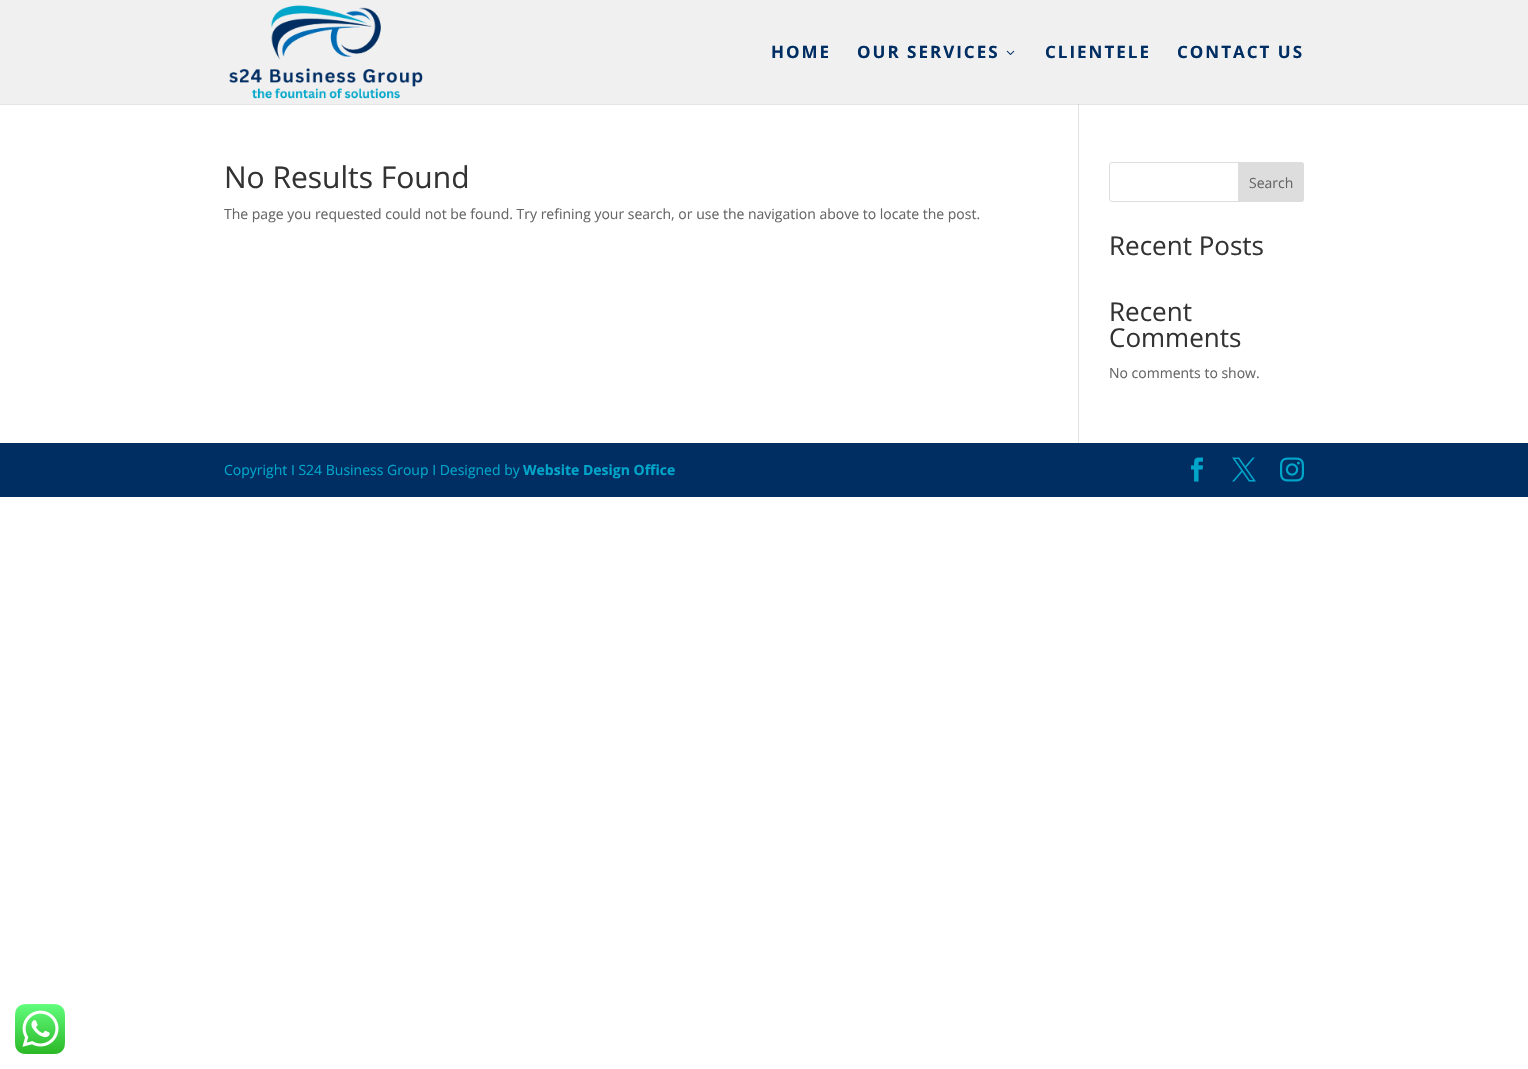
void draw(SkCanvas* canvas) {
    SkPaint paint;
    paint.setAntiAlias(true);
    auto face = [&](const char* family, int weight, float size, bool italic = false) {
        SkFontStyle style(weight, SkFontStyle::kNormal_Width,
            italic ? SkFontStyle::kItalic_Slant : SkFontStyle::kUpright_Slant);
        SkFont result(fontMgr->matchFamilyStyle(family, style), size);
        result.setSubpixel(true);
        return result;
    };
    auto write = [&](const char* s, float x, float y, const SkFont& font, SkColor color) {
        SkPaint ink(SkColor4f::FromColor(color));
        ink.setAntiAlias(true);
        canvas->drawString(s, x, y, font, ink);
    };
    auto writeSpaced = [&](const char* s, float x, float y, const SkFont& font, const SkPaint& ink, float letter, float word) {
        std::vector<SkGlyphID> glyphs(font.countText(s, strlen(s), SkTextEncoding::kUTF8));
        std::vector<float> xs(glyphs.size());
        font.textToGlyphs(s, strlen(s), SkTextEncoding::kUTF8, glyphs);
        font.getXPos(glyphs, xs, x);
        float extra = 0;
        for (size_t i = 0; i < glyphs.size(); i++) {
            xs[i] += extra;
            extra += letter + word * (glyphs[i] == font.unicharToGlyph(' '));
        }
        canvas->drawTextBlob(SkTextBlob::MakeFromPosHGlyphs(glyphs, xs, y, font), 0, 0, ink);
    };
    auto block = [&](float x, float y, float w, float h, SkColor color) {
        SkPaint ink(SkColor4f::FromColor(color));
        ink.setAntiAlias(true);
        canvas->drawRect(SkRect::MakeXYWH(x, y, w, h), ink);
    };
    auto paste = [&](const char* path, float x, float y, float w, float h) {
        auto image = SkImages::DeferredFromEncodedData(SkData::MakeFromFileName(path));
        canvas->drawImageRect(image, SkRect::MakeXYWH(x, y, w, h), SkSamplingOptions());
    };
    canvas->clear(SK_ColorWHITE);
    block(0, 104, 1528, 1, SkColorSetRGB(230, 230, 230));
    block(0, 0, 1528, 104, SkColorSetRGB(240, 240, 240));
    paste("pic1.png", 229, 5, 194, 94);
    auto kFont1 = face("Open Sans", 700, 17);
    paint.setColor(SkColorSetRGB(0, 46, 99));
    writeSpaced("HOME", 771, 58, kFont1, paint, 2, 0);
    writeSpaced("OUR SERVICES", 857, 58, kFont1, paint, 2, 0);
    paste("pic2.png", 1006, 50, 9, 5);
    writeSpaced("CLIENTELE", 1045, 58, kFont1, paint, 2, 0);
    writeSpaced("CONTACT US", 1177, 58, kFont1, paint, 2, 0);
    block(1078, 104, 1, 339, SkColorSetRGB(226, 226, 226));
    block(1078, 104, 1, 1, SkColorSetRGB(203, 203, 203));
    auto kFont2 = face("Open Sans", 400, 30);
    write("No Results Found", 224, 188, kFont2, SkColorSetRGB(51, 51, 51));
    auto kFont3 = face("Open Sans", 400, 14);
    write("The page you requested could not be found. Try refining your search, or use the navigation above to locate the post.", 224, 219, kFont3, SkColorSetRGB(102, 102, 102));
    paint.setStyle(SkPaint::kStroke_Style);
    paint.setStrokeWidth(1);
    paint.setColor(SkColorSetRGB(221, 221, 221));
    canvas->drawRoundRect(SkRect::MakeXYWH(1109.5f, 162.5f, 194, 39), 2.5f, 2.5f, paint);
    paint.setStyle(SkPaint::kFill_Style);
    canvas->drawPath(SkPathBuilder().moveTo(1238.5f, 162.5f).lineTo(1301, 162.5f).cubicTo(1302.5f, 162.5f, 1303.5f, 163.5f, 1303.5f, 165).lineTo(1303.5f, 199).cubicTo(1303.5f, 200.5f, 1302.5f, 201.5f, 1301, 201.5f).lineTo(1238.5f, 201.5f).close().detach(), paint);
    paint.setStyle(SkPaint::kStroke_Style);
    canvas->drawPath(SkPathBuilder().moveTo(1238.5f, 162.5f).lineTo(1301, 162.5f).cubicTo(1302.5f, 162.5f, 1303.5f, 163.5f, 1303.5f, 165).lineTo(1303.5f, 199).cubicTo(1303.5f, 200.5f, 1302.5f, 201.5f, 1301, 201.5f).lineTo(1238.5f, 201.5f).close().detach(), paint);
    write("Search", 1249, 188, kFont3, SkColorSetRGB(102, 102, 102));
    auto kFont4 = face("Open Sans", 400, 26);
    write("Recent Posts", 1109, 255, kFont4, SkColorSetRGB(51, 51, 51));
    write("Recent", 1109, 321, kFont4, SkColorSetRGB(51, 51, 51));
    write("Comments", 1109, 347, kFont4, SkColorSetRGB(51, 51, 51));
    write("No comments to show.", 1109, 378, kFont3, SkColorSetRGB(102, 102, 102));
    block(0, 443, 1528, 54, SkColorSetRGB(0, 46, 99));
    write("Copyright I S24 Business Group I Designed by", 224, 475, kFont3, SkColorSetRGB(0, 166, 202));
    auto kFont5 = face("Open Sans", 700, 14);
    write("Website Design Office", 523, 475, kFont5, SkColorSetRGB(0, 166, 202));
    paste("pic3.png", 1191, 457, 12, 25);
    paste("pic4.png", 1232, 457, 24, 25);
    paste("pic5.png", 1280, 457, 24, 25);
    paste("pic6.png", 15, 1004, 50, 50);
}
